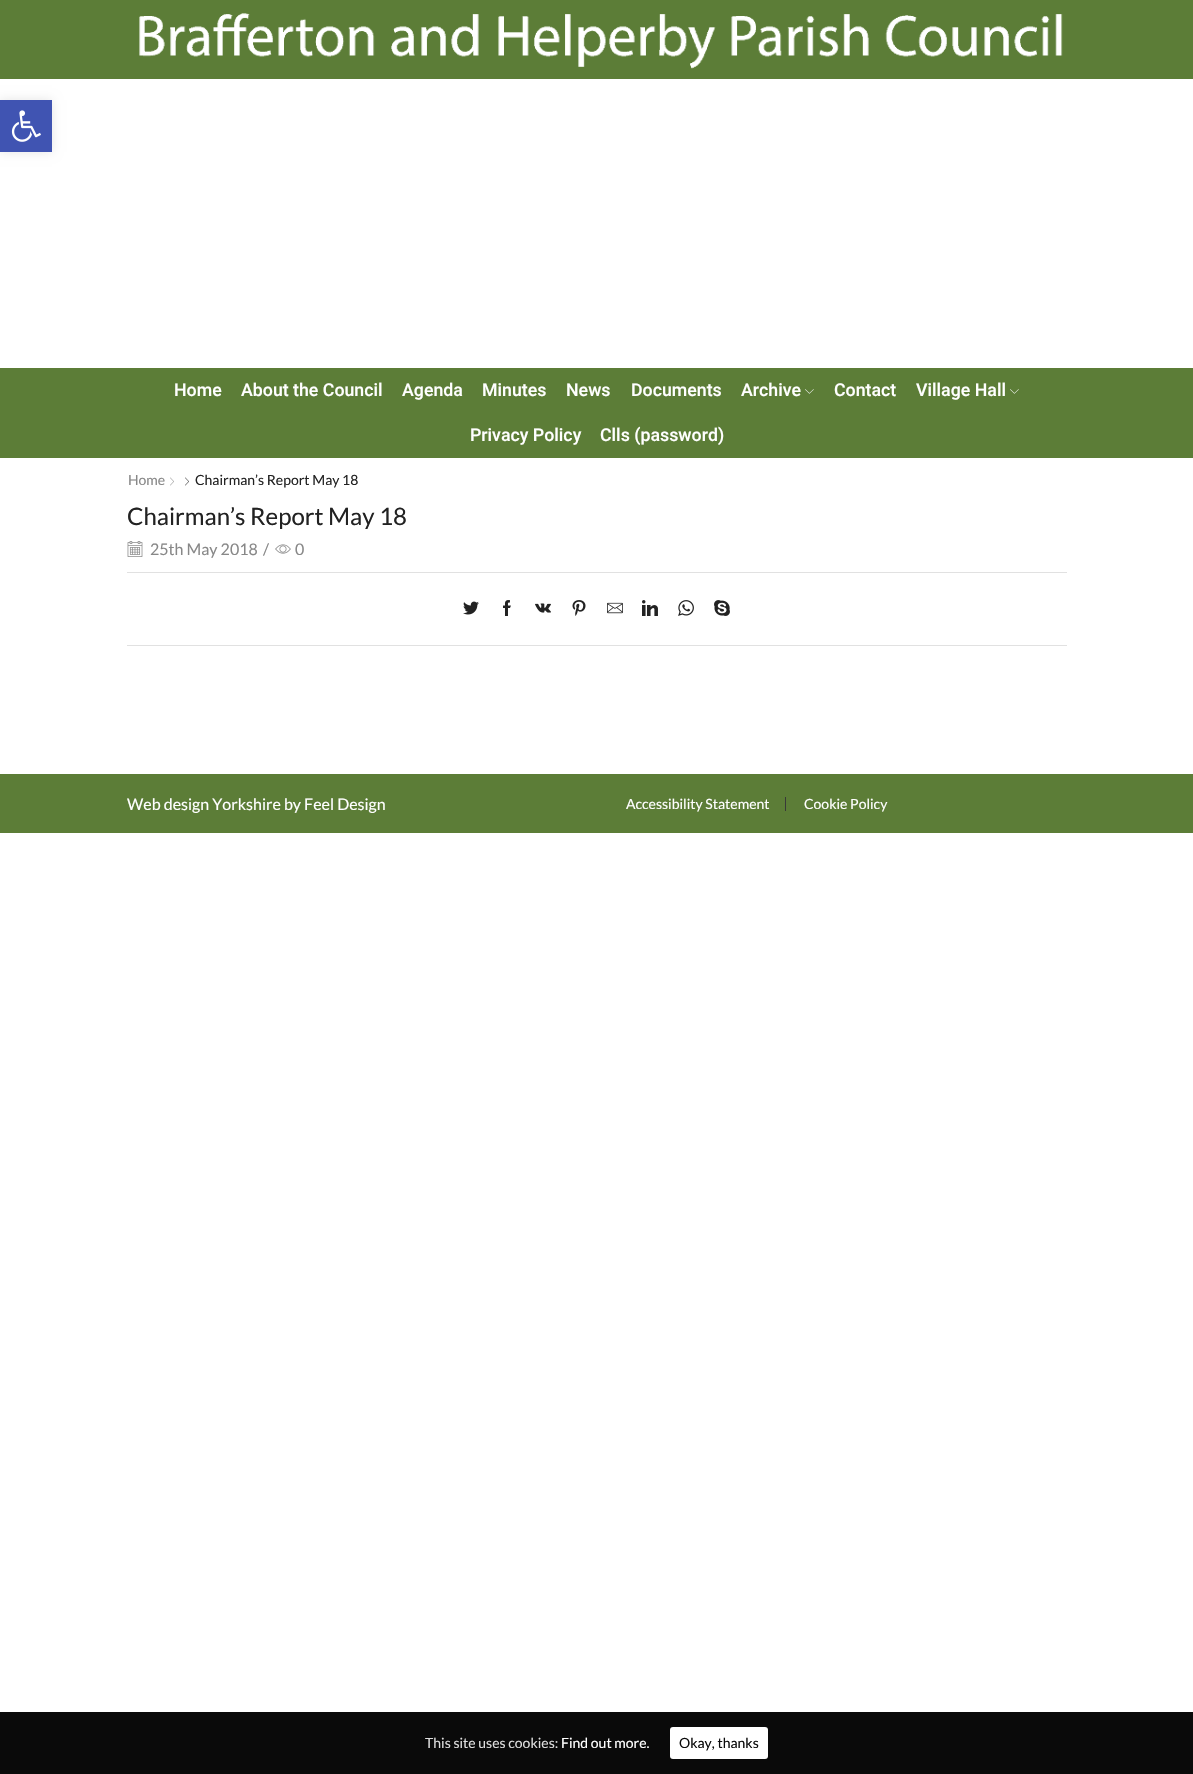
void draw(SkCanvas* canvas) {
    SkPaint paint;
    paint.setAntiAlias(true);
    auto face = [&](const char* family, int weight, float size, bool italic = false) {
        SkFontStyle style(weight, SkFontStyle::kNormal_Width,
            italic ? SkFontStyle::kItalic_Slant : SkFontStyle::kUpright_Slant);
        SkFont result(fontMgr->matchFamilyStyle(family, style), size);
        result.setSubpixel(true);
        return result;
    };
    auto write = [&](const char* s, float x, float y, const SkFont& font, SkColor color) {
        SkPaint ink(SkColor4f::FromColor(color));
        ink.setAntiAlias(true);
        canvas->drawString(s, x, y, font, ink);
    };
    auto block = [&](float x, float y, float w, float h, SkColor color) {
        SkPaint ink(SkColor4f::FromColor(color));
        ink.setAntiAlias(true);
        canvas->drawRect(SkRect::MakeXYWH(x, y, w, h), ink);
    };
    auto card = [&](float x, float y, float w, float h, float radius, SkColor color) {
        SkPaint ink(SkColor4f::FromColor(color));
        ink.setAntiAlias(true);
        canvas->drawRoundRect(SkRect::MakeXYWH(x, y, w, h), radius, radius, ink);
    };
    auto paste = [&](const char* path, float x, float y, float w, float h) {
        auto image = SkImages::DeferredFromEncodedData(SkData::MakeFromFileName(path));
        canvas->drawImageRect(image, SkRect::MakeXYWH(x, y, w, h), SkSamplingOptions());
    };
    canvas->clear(SK_ColorWHITE);
    paint.setColor(SkColorSetARGB(26, 0, 0, 0));
    paint.setMaskFilter(SkMaskFilter::MakeBlur(kNormal_SkBlurStyle, 5));
    canvas->drawRect(SkRect::MakeXYWH(0, 100, 52, 52), paint);
    paint.setMaskFilter(nullptr);
    block(0, 100, 52, 52, SkColorSetRGB(64, 84, 178));
    paste("pic1.png", 11, 110, 30, 32);
    block(0, 0, 1193, 79, SkColorSetRGB(92, 125, 55));
    paste("pic2.png", 139, 13, 924, 56);
    block(0, 368, 1193, 90, SkColorSetRGB(92, 125, 55));
    auto kFont1 = face("Roboto", 500, 17.75f);
    write("Home", 174, 396, kFont1, SK_ColorWHITE);
    write("About the Council", 241, 396, kFont1, SK_ColorWHITE);
    write("Agenda", 402, 396, kFont1, SK_ColorWHITE);
    write("Minutes", 482, 396, kFont1, SK_ColorWHITE);
    write("News", 566, 396, kFont1, SK_ColorWHITE);
    write("Documents", 631, 396, kFont1, SK_ColorWHITE);
    write("Archive", 741, 396, kFont1, SK_ColorWHITE);
    paste("pic3.png", 805, 389, 9, 5);
    write("Contact", 834, 396, kFont1, SK_ColorWHITE);
    write("Village Hall", 916, 396, kFont1, SK_ColorWHITE);
    paste("pic3.png", 1010, 389, 9, 5);
    write("Privacy Policy", 470, 441, kFont1, SK_ColorWHITE);
    write("Clls (password)", 600, 441, kFont1, SK_ColorWHITE);
    auto kFont2 = face("Lato", 400, 14);
    write("Home", 128, 485, kFont2, SkColorSetRGB(136, 136, 136));
    paste("pic4.png", 170, 477, 4, 9);
    paste("pic5.png", 185, 477, 4, 9);
    write("Chairman’s Report May 18", 195, 485, kFont2, SkColorSetRGB(34, 34, 34));
    auto kFont3 = face("Lato", 400, 24);
    write("Chairman’s Report May 18", 127, 525, kFont3, SkColorSetRGB(34, 34, 34));
    paste("pic6.png", 127, 541, 16, 16);
    auto kFont4 = face("Lato", 400, 16);
    write("25th May 2018", 150, 555, kFont4, SkColorSetRGB(136, 136, 136));
    write("/", 263, 555, kFont4, SkColorSetRGB(136, 136, 136));
    paste("pic7.png", 275, 544, 16, 10);
    write("0", 295, 555, kFont4, SkColorSetRGB(136, 136, 136));
    block(127, 572, 940, 1, SkColorSetRGB(225, 225, 225));
    block(127, 645, 940, 1, SkColorSetRGB(225, 225, 225));
    paste("pic8.png", 463, 601, 16, 14);
    paste("pic9.png", 503, 600, 8, 16);
    paste("pic10.png", 535, 603, 16, 10);
    paste("pic11.png", 572, 600, 14, 16);
    paste("pic12.png", 607, 602, 16, 12);
    paste("pic13.png", 642, 600, 16, 16);
    paste("pic14.png", 678, 600, 16, 16);
    paste("pic15.png", 714, 600, 16, 16);
    block(0, 774, 1193, 59, SkColorSetRGB(92, 125, 55));
    write("Web design Yorkshire by Feel Design", 127, 810, kFont4, SK_ColorWHITE);
    block(785, 797, 1, 14, SkColorSetRGB(57, 57, 57));
    write("Accessibility Statement", 626, 809, kFont2, SK_ColorWHITE);
    write("Cookie Policy", 804, 809, kFont2, SK_ColorWHITE);
    block(0, 1712, 1193, 62, SkColorSetRGB(10, 10, 10));
    write("This site uses cookies:", 425, 1748, kFont2, SkColorSetRGB(221, 221, 221));
    write("Find out more.", 561, 1748, kFont2, SK_ColorWHITE);
    card(670, 1727, 98, 32, 3, SK_ColorWHITE);
    write("Okay, thanks", 679, 1748, kFont2, SkColorSetRGB(10, 10, 10));
}
